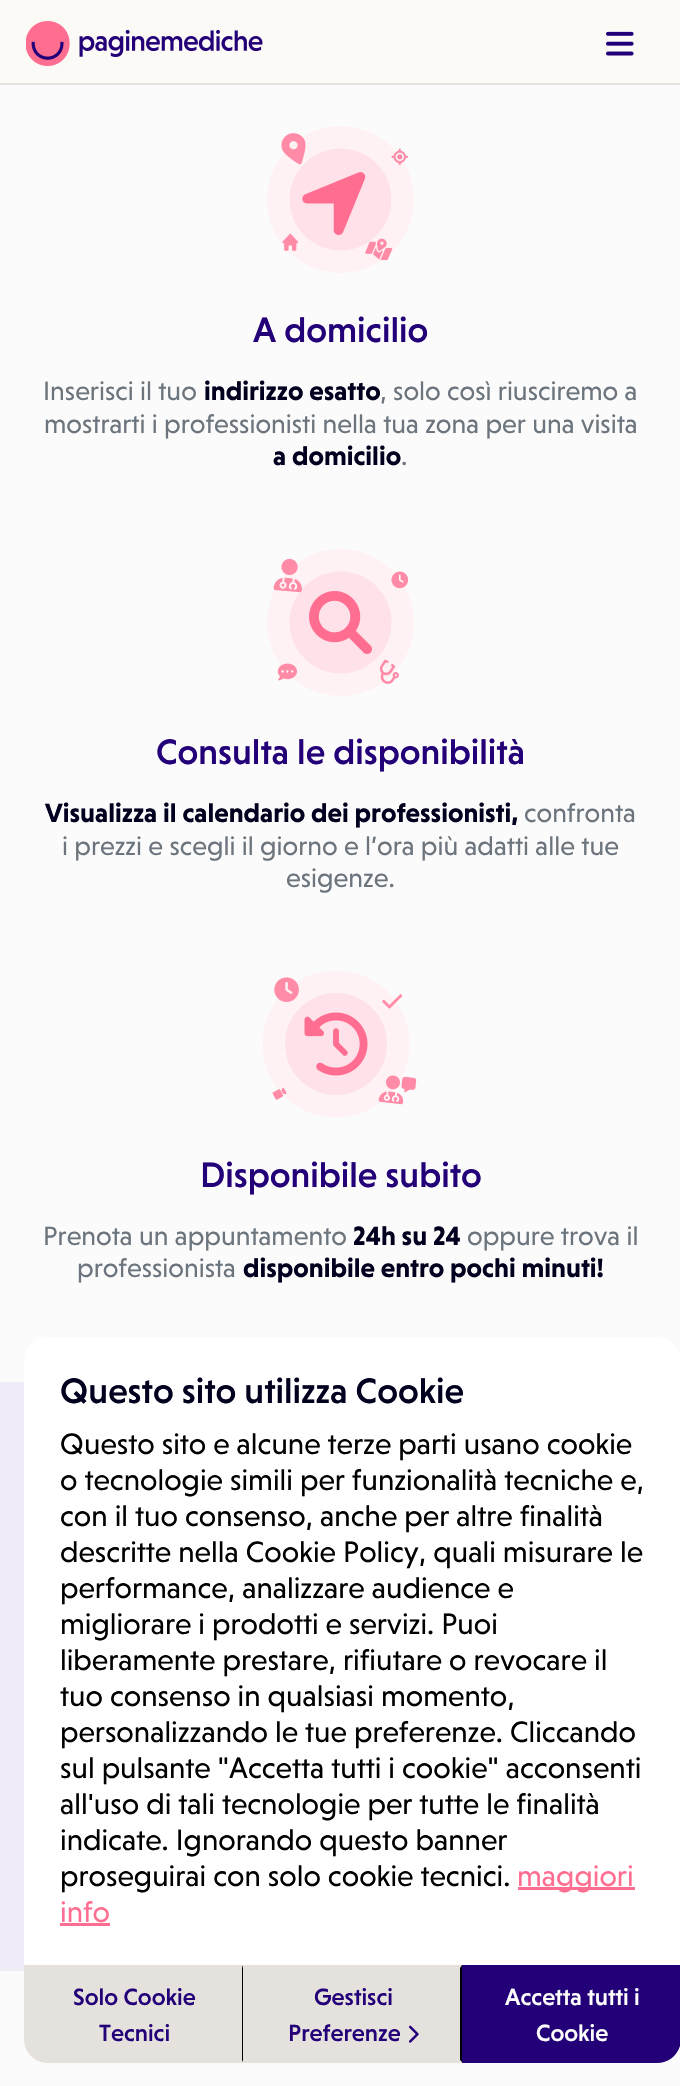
void draw(SkCanvas* canvas) {
    SkPaint paint;
    paint.setAntiAlias(true);
    auto face = [&](const char* family, int weight, float size, bool italic = false) {
        SkFontStyle style(weight, SkFontStyle::kNormal_Width,
            italic ? SkFontStyle::kItalic_Slant : SkFontStyle::kUpright_Slant);
        SkFont result(fontMgr->matchFamilyStyle(family, style), size);
        result.setSubpixel(true);
        return result;
    };
    auto write = [&](const char* s, float x, float y, const SkFont& font, SkColor color) {
        SkPaint ink(SkColor4f::FromColor(color));
        ink.setAntiAlias(true);
        canvas->drawString(s, x, y, font, ink);
    };
    auto block = [&](float x, float y, float w, float h, SkColor color) {
        SkPaint ink(SkColor4f::FromColor(color));
        ink.setAntiAlias(true);
        canvas->drawRect(SkRect::MakeXYWH(x, y, w, h), ink);
    };
    auto card = [&](float x, float y, float w, float h, float radius, SkColor color) {
        SkPaint ink(SkColor4f::FromColor(color));
        ink.setAntiAlias(true);
        canvas->drawRoundRect(SkRect::MakeXYWH(x, y, w, h), radius, radius, ink);
    };
    auto paste = [&](const char* path, float x, float y, float w, float h) {
        auto image = SkImages::DeferredFromEncodedData(SkData::MakeFromFileName(path));
        canvas->drawImageRect(image, SkRect::MakeXYWH(x, y, w, h), SkSamplingOptions());
    };
    canvas->clear(SkColorSetRGB(251, 251, 251));
    block(0, 0, 680, 83, SkColorSetRGB(252, 250, 247));
    block(0, 83, 680, 2, SkColorSetRGB(229, 226, 222));
    paste("pic1.png", 26, 21, 237, 45);
    paste("pic2.png", 606, 31, 28, 25);
    paste("pic3.png", 267, 126, 147, 147);
    auto kFont1 = face("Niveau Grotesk", 500, 36);
    write("A domicilio", 253, 342, kFont1, SkColorSetRGB(35, 0, 120));
    auto kFont2 = face("Niveau Grotesk", 400, 27);
    write("Inserisci il tuo", 43, 400, kFont2, SkColorSetRGB(108, 117, 125));
    auto kFont3 = face("Niveau Grotesk", 700, 27);
    write("indirizzo esatto", 204, 400, kFont3, SkColorSetRGB(0, 0, 30));
    write(", solo così riusciremo a", 380, 400, kFont2, SkColorSetRGB(108, 117, 125));
    write("mostrarti i professionisti nella tua zona per una visita", 44, 433, kFont2, SkColorSetRGB(108, 117, 125));
    write("a domicilio", 273, 465, kFont3, SkColorSetRGB(0, 0, 30));
    write(".", 401, 465, kFont2, SkColorSetRGB(108, 117, 125));
    paste("pic4.png", 267, 549, 147, 147);
    write("Consulta le disponibilità", 156, 764, kFont1, SkColorSetRGB(35, 0, 120));
    write("Visualizza il calendario dei professionisti,", 45, 822, kFont3, SkColorSetRGB(0, 0, 30));
    write("confronta", 524, 822, kFont2, SkColorSetRGB(108, 117, 125));
    write("i prezzi e scegli il giorno e l’ora più adatti alle tue", 62, 855, kFont2, SkColorSetRGB(108, 117, 125));
    write("esigenze.", 286, 887, kFont2, SkColorSetRGB(108, 117, 125));
    paste("pic5.png", 263, 971, 154, 147);
    write("Disponibile subito", 200, 1187, kFont1, SkColorSetRGB(35, 0, 120));
    write("Prenota un appuntamento", 43, 1245, kFont2, SkColorSetRGB(108, 117, 125));
    write("24h su 24", 353, 1245, kFont3, SkColorSetRGB(0, 0, 30));
    write("oppure trova il", 467, 1245, kFont2, SkColorSetRGB(108, 117, 125));
    write("professionista", 77, 1277, kFont2, SkColorSetRGB(108, 117, 125));
    write("disponibile entro pochi minuti!", 243, 1277, kFont3, SkColorSetRGB(0, 0, 30));
    block(0, 1382, 24, 589, SkColorSetRGB(239, 235, 247));
    card(24, 1337, 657, 726, 24, SK_ColorWHITE);
    write("Questo sito utilizza Cookie", 60, 1403, kFont1, SkColorSetRGB(0, 0, 30));
    auto kFont4 = face("Niveau Grotesk", 400, 30);
    write("Questo sito e alcune terze parti usano cookie", 60, 1454, kFont4, SK_ColorBLACK);
    write("o tecnologie simili per funzionalità tecniche e,", 60, 1490, kFont4, SK_ColorBLACK);
    write("con il tuo consenso, anche per altre finalità", 60, 1526, kFont4, SK_ColorBLACK);
    write("descritte nella Cookie Policy, quali misurare le", 60, 1562, kFont4, SK_ColorBLACK);
    write("performance, analizzare audience e", 60, 1598, kFont4, SK_ColorBLACK);
    write("migliorare i prodotti e servizi. Puoi", 60, 1634, kFont4, SK_ColorBLACK);
    write("liberamente prestare, rifiutare o revocare il", 60, 1670, kFont4, SK_ColorBLACK);
    write("tuo consenso in qualsiasi momento,", 60, 1706, kFont4, SK_ColorBLACK);
    write("personalizzando le tue preferenze. Cliccando", 60, 1742, kFont4, SK_ColorBLACK);
    write("sul pulsante \"Accetta tutti i cookie\" acconsenti", 60, 1778, kFont4, SK_ColorBLACK);
    write("all'uso di tali tecnologie per tutte le finalità", 60, 1814, kFont4, SK_ColorBLACK);
    write("indicate. Ignorando questo banner", 60, 1850, kFont4, SK_ColorBLACK);
    write("proseguirai con solo cookie tecnici.", 60, 1886, kFont4, SK_ColorBLACK);
    block(518, 1887, 117, 3, SkColorSetRGB(255, 110, 145));
    write("maggiori", 517, 1886, kFont4, SkColorSetRGB(255, 110, 145));
    write("info", 60, 1922, kFont4, SkColorSetRGB(255, 110, 145));
    block(60, 1923, 50, 3, SkColorSetRGB(255, 110, 145));
    paint.setColor(SkColorSetRGB(229, 226, 222));
    canvas->drawPath(SkPathBuilder().moveTo(24, 1965).lineTo(243, 1965).lineTo(243, 2063).lineTo(48, 2063).cubicTo(34.5f, 2063, 24, 2052.5f, 24, 2039).close().detach(), paint);
    paint.setColor(SK_ColorBLACK);
    canvas->drawPath(SkPathBuilder().moveTo(243, 1965).lineTo(243, 2062).lineTo(242, 2060).lineTo(242, 1968).close().detach(), paint);
    auto kFont5 = face("Niveau Grotesk", 500, 24);
    write("Solo Cookie", 73, 2005, kFont5, SkColorSetRGB(35, 0, 120));
    write("Tecnici", 99, 2041, kFont5, SkColorSetRGB(35, 0, 120));
    block(243, 1965, 219, 98, SkColorSetRGB(229, 226, 222));
    canvas->drawPath(SkPathBuilder().moveTo(462, 1965).lineTo(462, 2062).lineTo(460, 2060).lineTo(460, 1968).close().detach(), paint);
    write("Gestisci", 314, 2005, kFont5, SkColorSetRGB(35, 0, 120));
    write("Preferenze", 288, 2041, kFont5, SkColorSetRGB(35, 0, 120));
    paste("pic6.png", 408, 2025, 11, 18);
    paint.setColor(SkColorSetRGB(35, 0, 120));
    canvas->drawPath(SkPathBuilder().moveTo(462, 1965).lineTo(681, 1965).lineTo(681, 2039).cubicTo(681, 2052.5f, 670.5f, 2063, 657, 2063).lineTo(462, 2063).close().detach(), paint);
    write("Accetta tutti i", 505, 2005, kFont5, SK_ColorWHITE);
    write("Cookie", 536, 2041, kFont5, SK_ColorWHITE);
}
